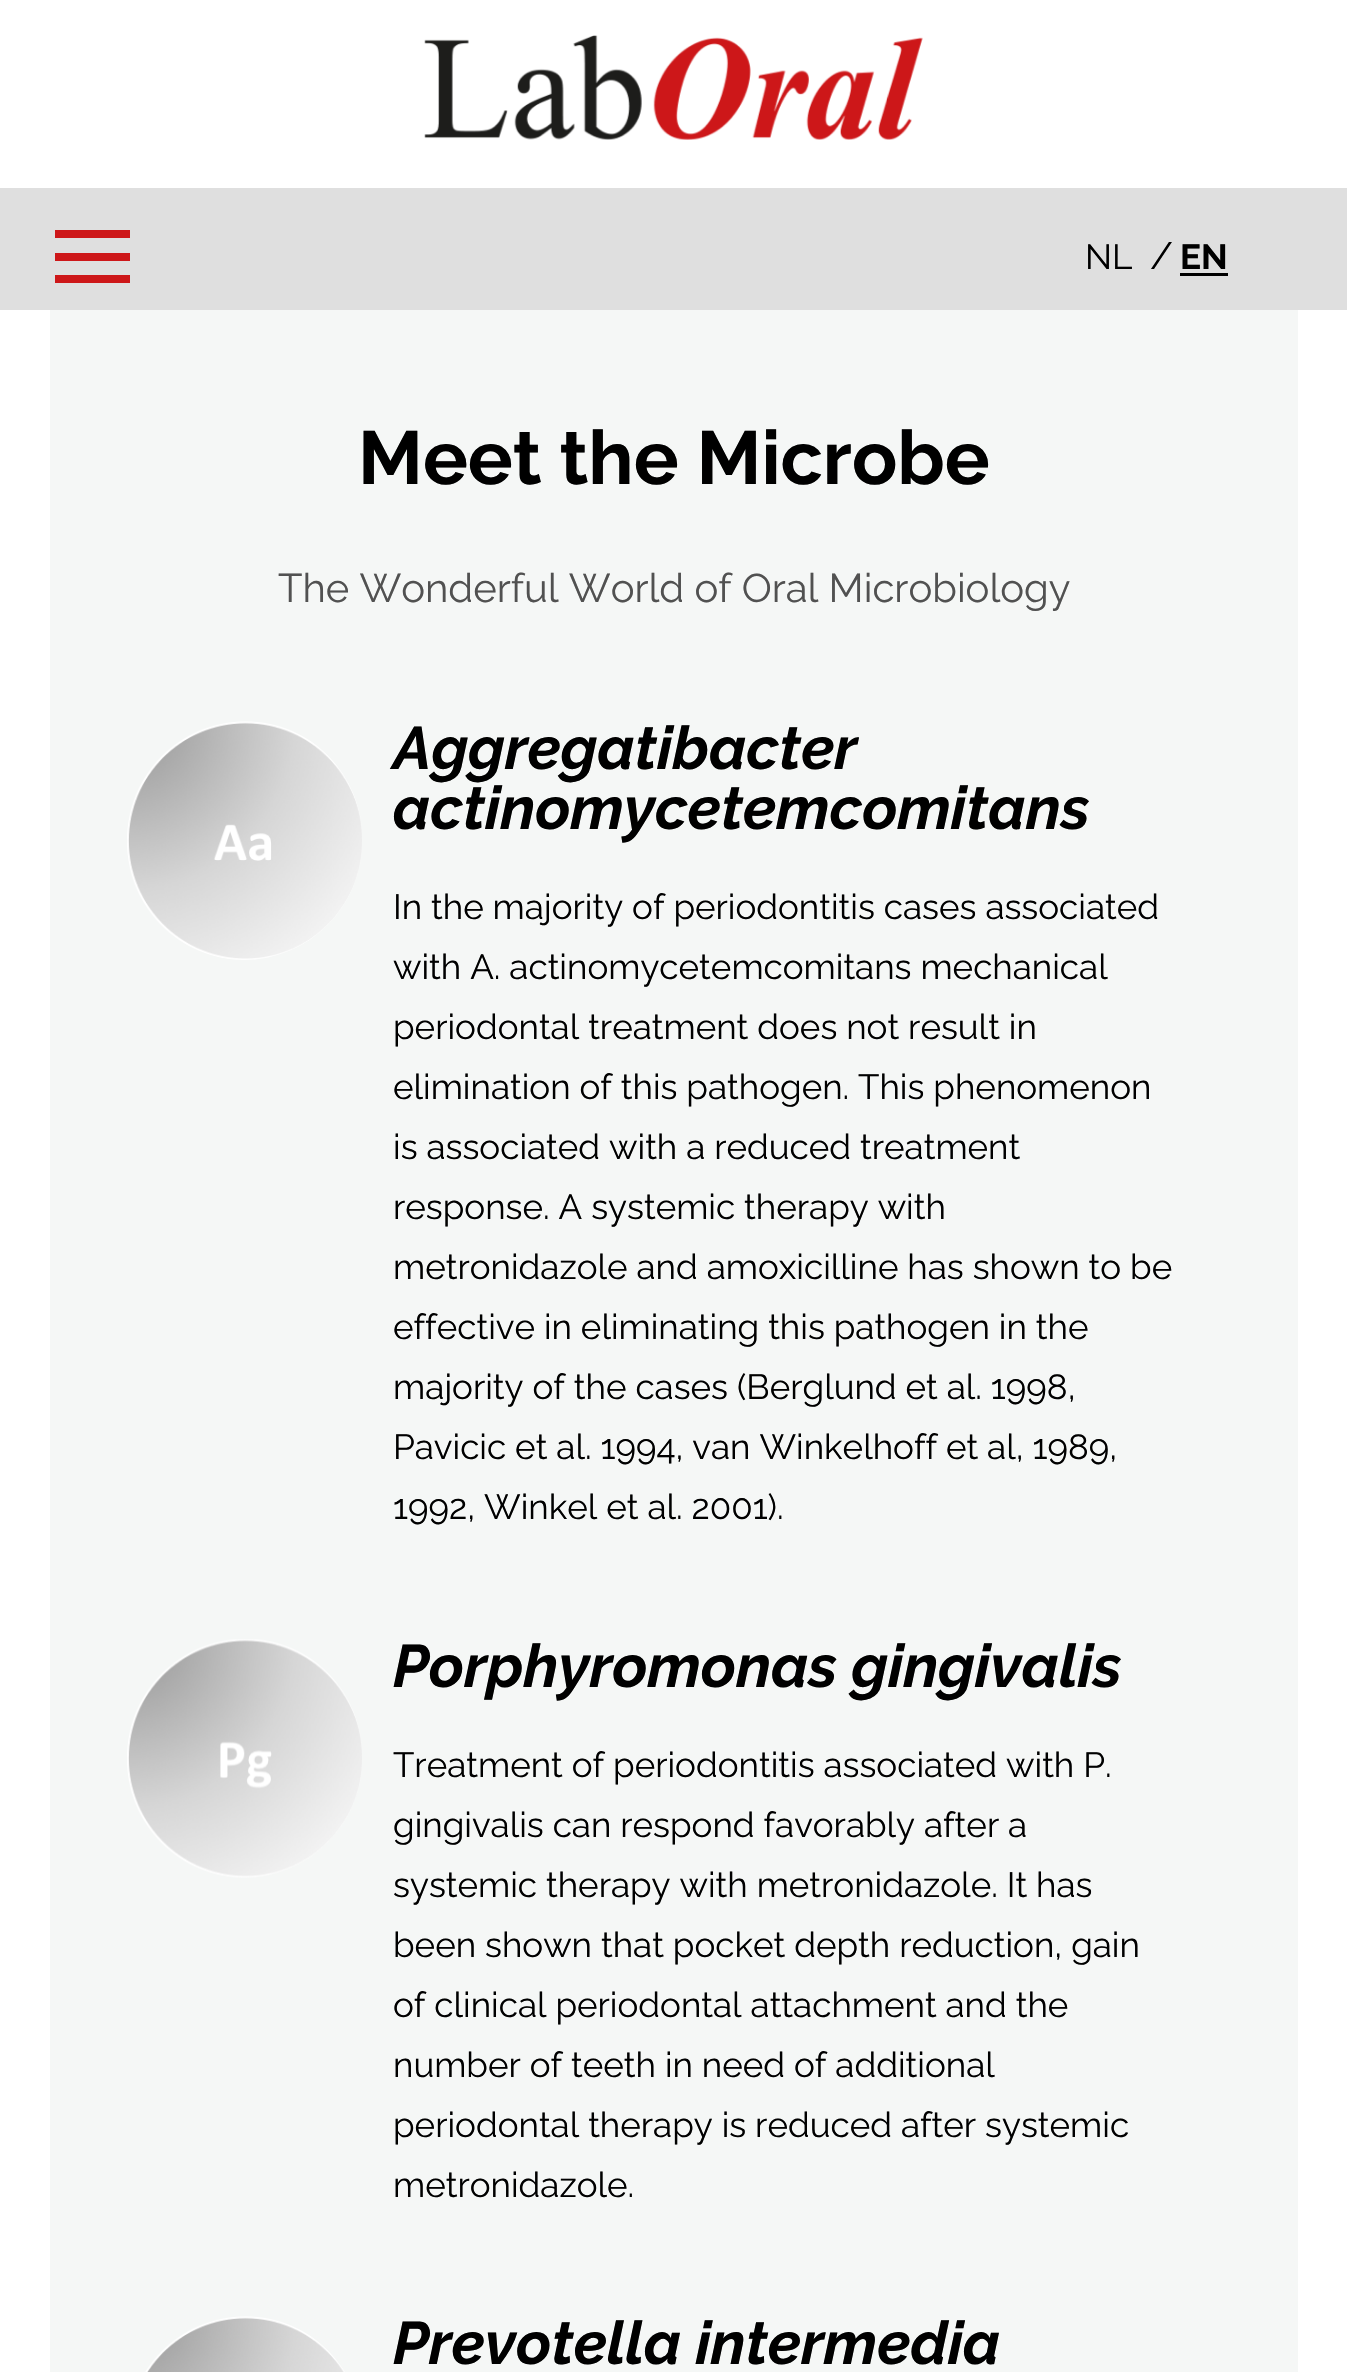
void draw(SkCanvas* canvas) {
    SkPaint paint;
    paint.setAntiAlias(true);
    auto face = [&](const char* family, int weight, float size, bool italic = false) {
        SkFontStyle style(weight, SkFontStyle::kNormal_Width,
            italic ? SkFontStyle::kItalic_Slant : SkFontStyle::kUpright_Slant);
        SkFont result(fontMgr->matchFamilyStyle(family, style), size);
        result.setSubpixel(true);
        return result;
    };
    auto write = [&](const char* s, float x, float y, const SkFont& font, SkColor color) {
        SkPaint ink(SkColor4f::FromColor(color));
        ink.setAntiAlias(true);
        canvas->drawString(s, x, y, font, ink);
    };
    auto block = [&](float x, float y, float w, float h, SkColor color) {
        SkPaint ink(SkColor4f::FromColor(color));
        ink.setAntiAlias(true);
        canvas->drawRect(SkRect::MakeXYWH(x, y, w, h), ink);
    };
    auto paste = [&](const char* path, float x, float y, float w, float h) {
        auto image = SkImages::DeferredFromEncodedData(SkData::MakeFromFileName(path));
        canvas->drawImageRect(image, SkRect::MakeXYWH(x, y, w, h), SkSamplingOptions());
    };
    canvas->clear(SK_ColorWHITE);
    block(0, 188, 1347, 122, SkColorSetRGB(223, 223, 223));
    block(55, 230, 75, 8, SkColorSetRGB(205, 23, 25));
    block(55, 253, 75, 8, SkColorSetRGB(205, 23, 25));
    block(55, 275, 75, 8, SkColorSetRGB(205, 23, 25));
    paste("pic1.png", 424, 35, 499, 105);
    auto kFont1 = face("Raleway", 400, 35);
    write("NL", 1085, 269, kFont1, SK_ColorBLACK);
    auto kFont2 = face("Raleway", 400, 38);
    write("/", 1150, 269, kFont2, SK_ColorBLACK);
    auto kFont3 = face("Raleway", 700, 35);
    write("EN", 1180, 269, kFont3, SK_ColorBLACK);
    block(1180, 273, 48, 3, SK_ColorBLACK);
    block(50, 310, 1248, 2062, SkColorSetRGB(245, 247, 246));
    auto kFont4 = face("Raleway", 700, 75);
    write("Meet the Microbe", 358, 484, kFont4, SK_ColorBLACK);
    auto kFont5 = face("Raleway", 400, 40);
    write("The Wonderful World of Oral Microbiology", 278, 602, kFont5, SkColorSetRGB(81, 81, 81));
    paste("pic2.png", 127, 721, 235, 239);
    auto kFont6 = face("Raleway", 700, 60, true);
    write("Aggregatibacter", 393, 769, kFont6, SK_ColorBLACK);
    write("actinomycetemcomitans", 393, 829, kFont6, SK_ColorBLACK);
    write("In the majority of periodontitis cases associated", 393, 919, kFont1, SK_ColorBLACK);
    write("with A. actinomycetemcomitans mechanical", 393, 979, kFont1, SK_ColorBLACK);
    write("periodontal treatment does not result in", 393, 1039, kFont1, SK_ColorBLACK);
    write("elimination of this pathogen. This phenomenon", 393, 1099, kFont1, SK_ColorBLACK);
    write("is associated with a reduced treatment", 393, 1159, kFont1, SK_ColorBLACK);
    write("response. A systemic therapy with", 393, 1219, kFont1, SK_ColorBLACK);
    write("metronidazole and amoxicilline has shown to be", 393, 1279, kFont1, SK_ColorBLACK);
    write("effective in eliminating this pathogen in the", 393, 1339, kFont1, SK_ColorBLACK);
    write("majority of the cases (Berglund et al. 1998,", 393, 1399, kFont1, SK_ColorBLACK);
    write("Pavicic et al. 1994, van Winkelhoff et al, 1989,", 393, 1459, kFont1, SK_ColorBLACK);
    write("1992, Winkel et al. 2001).", 393, 1519, kFont1, SK_ColorBLACK);
    paste("pic3.png", 127, 1639, 235, 239);
    write("Porphyromonas gingivalis", 393, 1687, kFont6, SK_ColorBLACK);
    write("Treatment of periodontitis associated with P.", 393, 1777, kFont1, SK_ColorBLACK);
    write("gingivalis can respond favorably after a", 393, 1837, kFont1, SK_ColorBLACK);
    write("systemic therapy with metronidazole. It has", 393, 1897, kFont1, SK_ColorBLACK);
    write("been shown that pocket depth reduction, gain", 393, 1957, kFont1, SK_ColorBLACK);
    write("of clinical periodontal attachment and the", 393, 2017, kFont1, SK_ColorBLACK);
    write("number of teeth in need of additional", 393, 2077, kFont1, SK_ColorBLACK);
    write("periodontal therapy is reduced after systemic", 393, 2137, kFont1, SK_ColorBLACK);
    write("metronidazole.", 393, 2197, kFont1, SK_ColorBLACK);
    paste("pic4.png", 145, 2316, 200, 56);
    write("Prevotella intermedia", 393, 2364, kFont6, SK_ColorBLACK);
}
